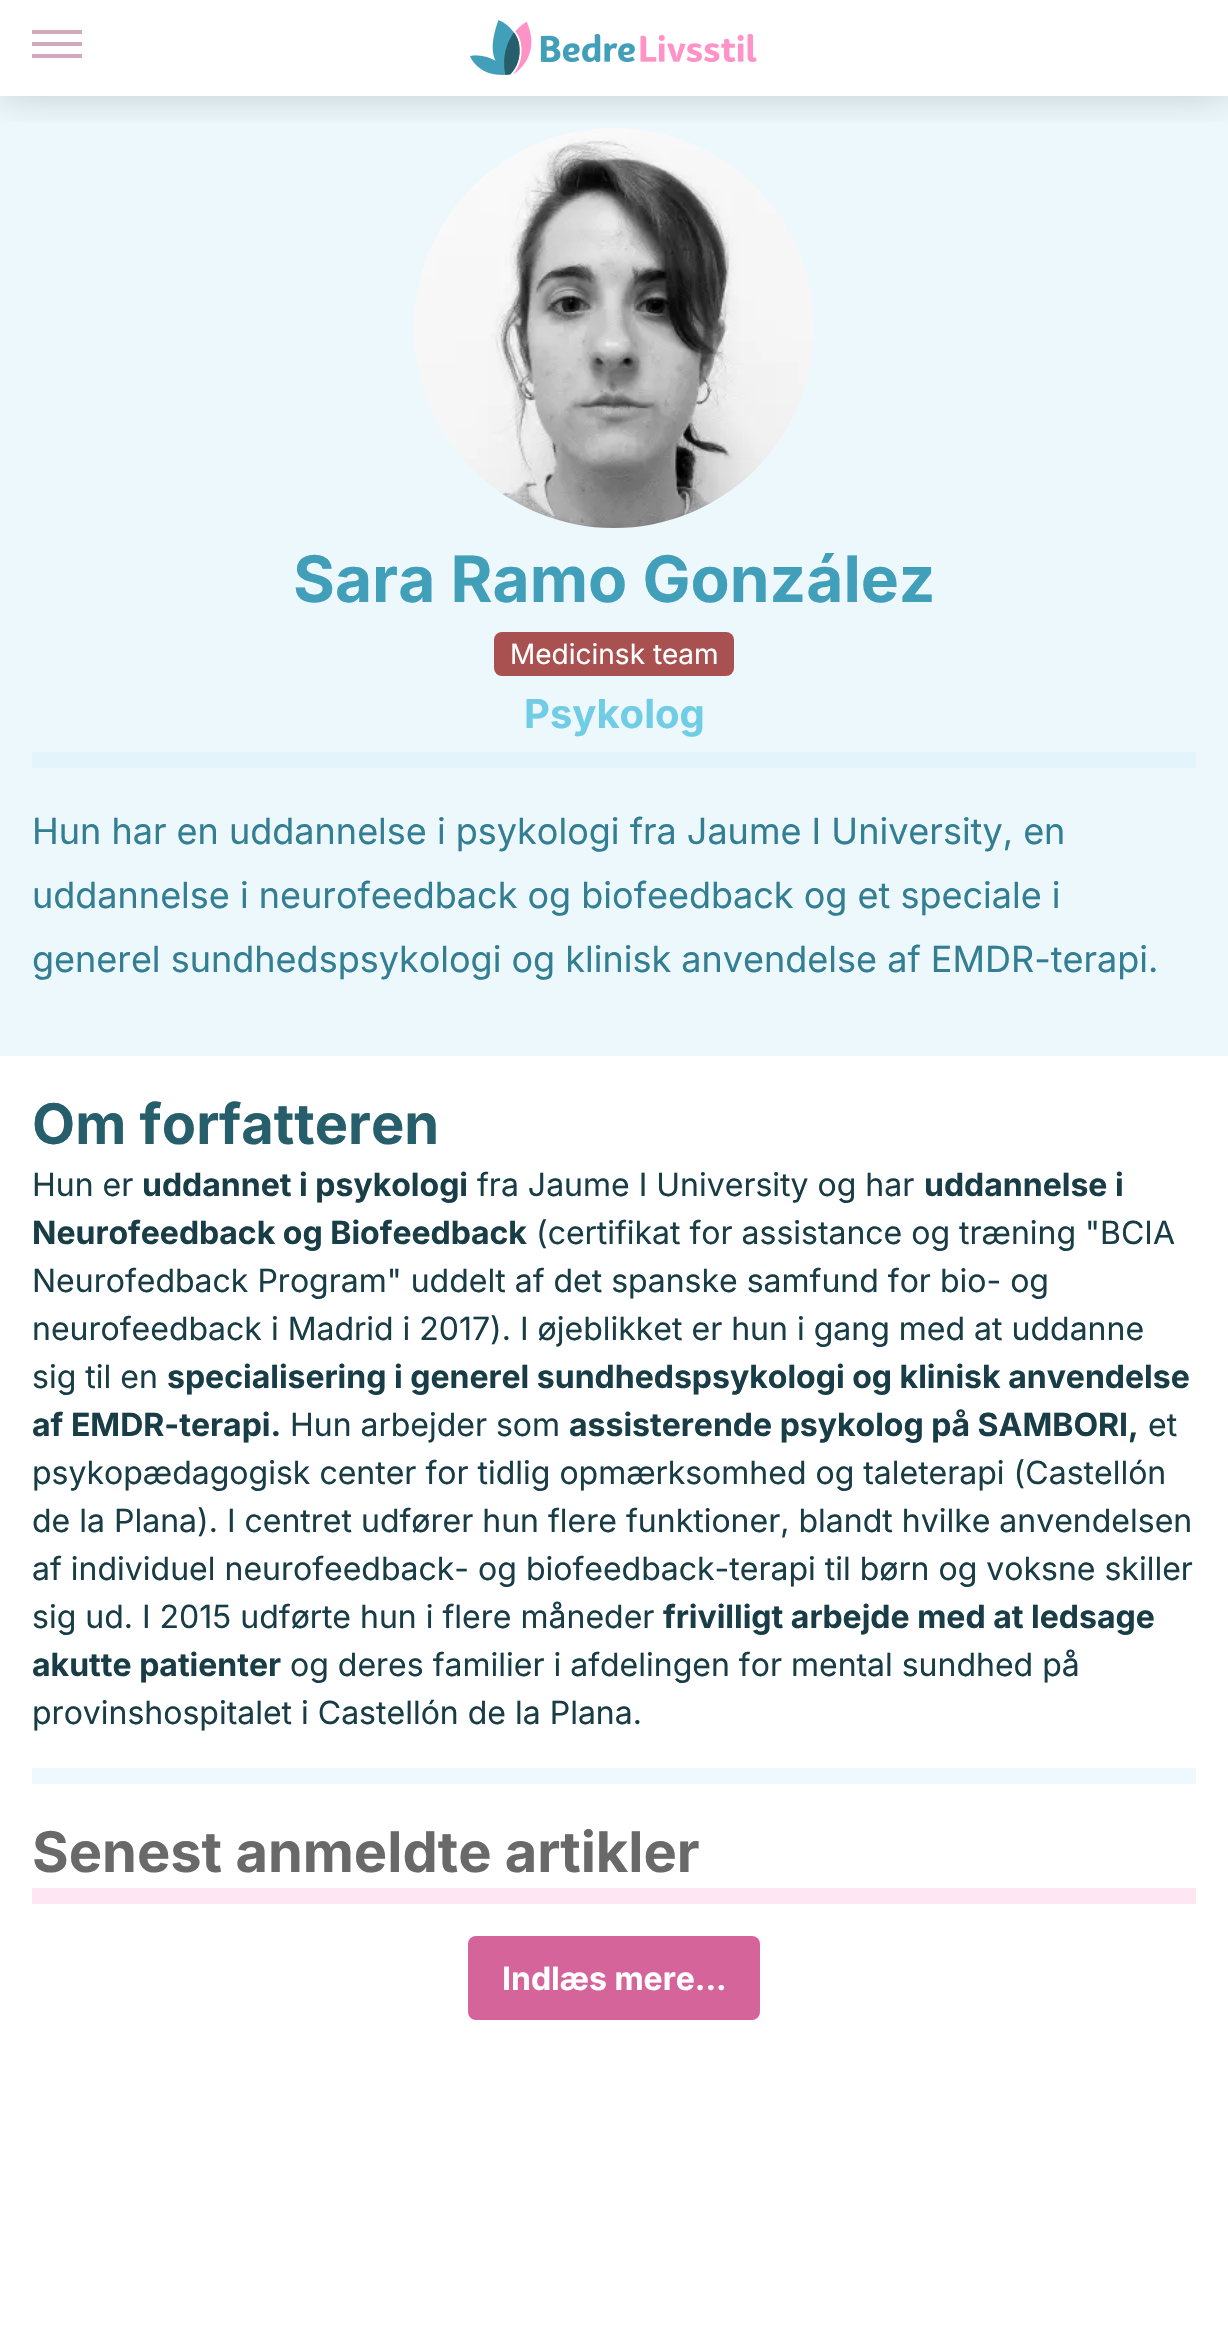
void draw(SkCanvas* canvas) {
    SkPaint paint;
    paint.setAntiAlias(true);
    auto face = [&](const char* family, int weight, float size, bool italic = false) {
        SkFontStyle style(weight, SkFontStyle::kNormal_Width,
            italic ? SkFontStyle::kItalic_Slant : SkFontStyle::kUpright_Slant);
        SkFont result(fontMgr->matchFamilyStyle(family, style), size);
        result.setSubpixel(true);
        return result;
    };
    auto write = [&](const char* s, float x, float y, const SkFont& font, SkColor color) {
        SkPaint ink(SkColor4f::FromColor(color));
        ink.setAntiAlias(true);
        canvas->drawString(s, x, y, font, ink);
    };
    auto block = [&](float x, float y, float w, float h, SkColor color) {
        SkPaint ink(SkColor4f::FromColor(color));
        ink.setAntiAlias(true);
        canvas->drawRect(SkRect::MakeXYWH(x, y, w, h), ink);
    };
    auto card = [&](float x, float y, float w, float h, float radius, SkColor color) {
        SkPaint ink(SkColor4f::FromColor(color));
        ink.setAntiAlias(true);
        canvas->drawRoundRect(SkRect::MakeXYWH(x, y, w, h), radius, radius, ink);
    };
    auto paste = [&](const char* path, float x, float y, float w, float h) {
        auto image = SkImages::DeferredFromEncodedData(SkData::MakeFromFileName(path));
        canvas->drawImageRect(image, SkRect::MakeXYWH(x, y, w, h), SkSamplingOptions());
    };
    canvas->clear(SK_ColorWHITE);
    block(0, 96, 1228, 960, SkColorSetRGB(236, 248, 252));
    paste("pic2.png", 414, 128, 400, 400);
    canvas->save();
    canvas->clipRect(SkRect::MakeXYWH(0, 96, 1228, 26));
    paint.setColor(SkColorSetARGB(64, 0, 0, 0));
    paint.setMaskFilter(SkMaskFilter::MakeBlur(kNormal_SkBlurStyle, 24));
    canvas->drawRect(SkRect::MakeXYWH(0, -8, 1228, 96), paint);
    paint.setMaskFilter(nullptr);
    canvas->restore();
    block(32, 30, 50, 4, SkColorSetRGB(212, 168, 189));
    block(32, 42, 50, 4, SkColorSetRGB(212, 168, 189));
    block(32, 54, 50, 4, SkColorSetRGB(212, 168, 189));
    paste("pic1.png", 470, 20, 287, 55);
    auto kFont1 = face("Inter", 700, 64);
    write("Sara Ramo González", 293, 602, kFont1, SkColorSetRGB(65, 159, 185));
    card(494, 632, 240, 44, 8, SkColorSetRGB(169, 80, 80));
    auto kFont2 = face("Inter", 400, 28);
    write("Medicinsk team", 510, 664, kFont2, SK_ColorWHITE);
    auto kFont3 = face("Inter", 700, 40);
    write("Psykolog", 524, 728, kFont3, SkColorSetRGB(113, 204, 229));
    block(32, 752, 1164, 16, SkColorSetRGB(227, 245, 251));
    auto kFont4 = face("Inter", 400, 36);
    write("Hun har en uddannelse i psykologi fra Jaume I University, en", 32, 844, kFont4, SkColorSetRGB(51, 126, 147));
    write("uddannelse i neurofeedback og biofeedback og et speciale i", 32, 908, kFont4, SkColorSetRGB(51, 126, 147));
    write("generel sundhedspsykologi og klinisk anvendelse af EMDR-terapi.", 32, 972, kFont4, SkColorSetRGB(51, 126, 147));
    auto kFont5 = face("Inter", 700, 56);
    write("Om forfatteren", 32, 1144, kFont5, SkColorSetRGB(38, 94, 108));
    auto kFont6 = face("Inter", 400, 32);
    write("Hun er", 32, 1196, kFont6, SkColorSetRGB(24, 61, 70));
    auto kFont7 = face("Inter", 700, 32);
    write("uddannet i psykologi", 142, 1196, kFont7, SkColorSetRGB(24, 61, 70));
    write("fra Jaume I University og har", 477, 1196, kFont6, SkColorSetRGB(24, 61, 70));
    write("uddannelse i", 924, 1196, kFont7, SkColorSetRGB(24, 61, 70));
    write("Neurofeedback og Biofeedback", 32, 1244, kFont7, SkColorSetRGB(24, 61, 70));
    write("(certifikat for assistance og træning \"BCIA", 536, 1244, kFont6, SkColorSetRGB(24, 61, 70));
    write("Neurofedback Program\" uddelt af det spanske samfund for bio- og", 32, 1292, kFont6, SkColorSetRGB(24, 61, 70));
    write("neurofeedback i Madrid i 2017). I øjeblikket er hun i gang med at uddanne", 32, 1340, kFont6, SkColorSetRGB(24, 61, 70));
    write("sig til en", 32, 1388, kFont6, SkColorSetRGB(24, 61, 70));
    write("specialisering i generel sundhedspsykologi og klinisk anvendelse", 167, 1388, kFont7, SkColorSetRGB(24, 61, 70));
    write("af EMDR-terapi.", 32, 1436, kFont7, SkColorSetRGB(24, 61, 70));
    write("Hun arbejder som", 290, 1436, kFont6, SkColorSetRGB(24, 61, 70));
    write("assisterende psykolog på SAMBORI,", 569, 1436, kFont7, SkColorSetRGB(24, 61, 70));
    write("et", 1148, 1436, kFont6, SkColorSetRGB(24, 61, 70));
    write("psykopædagogisk center for tidlig opmærksomhed og taleterapi (Castellón", 32, 1484, kFont6, SkColorSetRGB(24, 61, 70));
    write("de la Plana). I centret udfører hun flere funktioner, blandt hvilke anvendelsen", 32, 1532, kFont6, SkColorSetRGB(24, 61, 70));
    write("af individuel neurofeedback- og biofeedback-terapi til børn og voksne skiller", 32, 1580, kFont6, SkColorSetRGB(24, 61, 70));
    write("sig ud. I 2015 udførte hun i flere måneder", 32, 1628, kFont6, SkColorSetRGB(24, 61, 70));
    write("frivilligt arbejde med at ledsage", 663, 1628, kFont7, SkColorSetRGB(24, 61, 70));
    write("akutte patienter", 32, 1676, kFont7, SkColorSetRGB(24, 61, 70));
    write("og deres familier i afdelingen for mental sundhed på", 290, 1676, kFont6, SkColorSetRGB(24, 61, 70));
    write("provinshospitalet i Castellón de la Plana.", 32, 1724, kFont6, SkColorSetRGB(24, 61, 70));
    block(32, 1768, 1164, 16, SkColorSetRGB(237, 249, 252));
    write("Senest anmeldte artikler", 32, 1872, kFont5, SkColorSetRGB(105, 105, 105));
    block(32, 1888, 1164, 16, SkColorSetRGB(255, 230, 242));
    card(468, 1936, 292, 84, 8, SkColorSetRGB(212, 100, 154));
    write("Indlæs mere...", 502, 1990, kFont7, SK_ColorWHITE);
}
